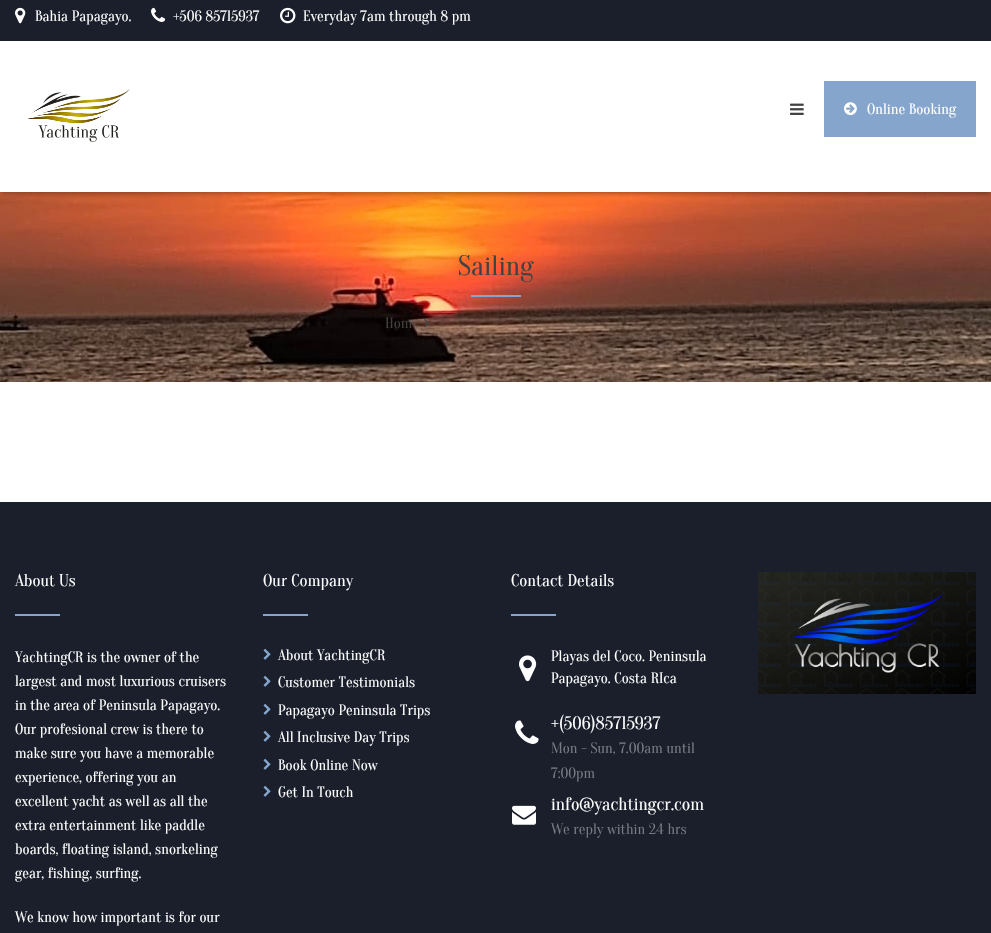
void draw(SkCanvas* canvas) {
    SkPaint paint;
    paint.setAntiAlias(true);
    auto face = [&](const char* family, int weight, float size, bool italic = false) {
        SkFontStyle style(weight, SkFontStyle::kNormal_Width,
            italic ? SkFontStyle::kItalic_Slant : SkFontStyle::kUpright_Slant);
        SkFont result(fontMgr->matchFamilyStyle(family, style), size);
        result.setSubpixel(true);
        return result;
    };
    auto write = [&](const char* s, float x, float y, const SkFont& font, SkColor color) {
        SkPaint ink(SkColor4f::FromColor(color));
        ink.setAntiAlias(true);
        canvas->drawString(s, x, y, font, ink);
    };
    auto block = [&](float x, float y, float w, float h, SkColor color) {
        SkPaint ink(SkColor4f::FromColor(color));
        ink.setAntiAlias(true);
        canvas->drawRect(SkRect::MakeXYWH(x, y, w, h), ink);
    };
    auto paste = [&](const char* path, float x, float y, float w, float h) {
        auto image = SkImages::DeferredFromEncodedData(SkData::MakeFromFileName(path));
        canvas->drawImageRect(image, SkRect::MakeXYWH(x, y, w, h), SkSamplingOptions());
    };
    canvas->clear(SK_ColorWHITE);
    block(0, 0, 991, 41, SkColorSetRGB(26, 31, 43));
    paste("pic1.png", 15, 7, 11, 17);
    auto kFont1 = face("Oranienbaum", 400, 15);
    write("Bahia Papagayo.", 35, 21, kFont1, SK_ColorWHITE);
    paste("pic2.png", 151, 7, 15, 15);
    write("+506 85715937", 173, 21, kFont1, SK_ColorWHITE);
    paste("pic3.png", 280, 7, 16, 17);
    write("Everyday 7am through 8 pm", 303, 21, kFont1, SK_ColorWHITE);
    paste("pic7.png", 0, 192, 991, 190);
    canvas->save();
    canvas->clipRect(SkRect::MakeXYWH(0, 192, 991, 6));
    paint.setColor(SkColorSetARGB(77, 0, 0, 0));
    paint.setMaskFilter(SkMaskFilter::MakeBlur(kNormal_SkBlurStyle, 2.5f));
    canvas->drawRect(SkRect::MakeXYWH(1, 45, 989, 149), paint);
    paint.setMaskFilter(nullptr);
    canvas->restore();
    paste("pic4.png", 28, 89, 102, 53);
    paste("pic5.png", 790, 103, 14, 12);
    block(824, 81, 152, 56, SkColorSetRGB(133, 165, 204));
    paste("pic6.png", 844, 102, 13, 14);
    write("Online Booking", 867, 114, kFont1, SK_ColorWHITE);
    auto kFont2 = face("Oranienbaum", 400, 28);
    write("Sailing", 458, 275, kFont2, SkColorSetRGB(66, 66, 66));
    block(471, 295, 50, 2, SkColorSetRGB(133, 165, 204));
    write("Hom", 385, 328, kFont1, SkColorSetRGB(66, 66, 66));
    paste("pic8.png", 424, 319, 5, 9);
    block(0, 502, 991, 431, SkColorSetRGB(26, 31, 43));
    auto kFont3 = face("Oranienbaum", 400, 17);
    write("About Us", 15, 586, kFont3, SK_ColorWHITE);
    block(15, 614, 45, 2, SkColorSetRGB(133, 165, 204));
    write("YachtingCR is the owner of the", 15, 662, kFont1, SK_ColorWHITE);
    write("largest and most luxurious cruisers", 15, 686, kFont1, SK_ColorWHITE);
    write("in the area of Peninsula Papagayo.", 15, 710, kFont1, SK_ColorWHITE);
    write("Our profesional crew is there to", 15, 734, kFont1, SK_ColorWHITE);
    write("make sure you have a memorable", 15, 758, kFont1, SK_ColorWHITE);
    write("experience, offering you an", 15, 782, kFont1, SK_ColorWHITE);
    write("excellent yacht as well as all the", 15, 806, kFont1, SK_ColorWHITE);
    write("extra entertainment like paddle", 15, 830, kFont1, SK_ColorWHITE);
    write("boards, floating island, snorkeling", 15, 854, kFont1, SK_ColorWHITE);
    write("gear, fishing, surfing.", 15, 878, kFont1, SK_ColorWHITE);
    write("We know how important is for our", 15, 922, kFont1, SK_ColorWHITE);
    write("Our Company", 263, 586, kFont3, SK_ColorWHITE);
    block(263, 614, 45, 2, SkColorSetRGB(133, 165, 204));
    paste("pic9.png", 263, 648, 8, 12);
    write("About YachtingCR", 278, 660, kFont1, SK_ColorWHITE);
    paste("pic9.png", 263, 675, 8, 12);
    write("Customer Testimonials", 278, 687, kFont1, SK_ColorWHITE);
    paste("pic9.png", 263, 703, 8, 12);
    write("Papagayo Peninsula Trips", 278, 715, kFont1, SK_ColorWHITE);
    paste("pic9.png", 263, 730, 8, 12);
    write("All Inclusive Day Trips", 278, 742, kFont1, SK_ColorWHITE);
    paste("pic9.png", 263, 758, 8, 12);
    write("Book Online Now", 278, 770, kFont1, SK_ColorWHITE);
    paste("pic9.png", 263, 785, 8, 12);
    write("Get In Touch", 278, 797, kFont1, SK_ColorWHITE);
    write("Contact Details", 511, 586, kFont3, SK_ColorWHITE);
    block(511, 614, 45, 2, SkColorSetRGB(133, 165, 204));
    paste("pic10.png", 519, 655, 18, 27);
    write("Playas del Coco. Peninsula", 551, 661, kFont1, SK_ColorWHITE);
    write("Papagayo. Costa RIca", 551, 683, kFont1, SK_ColorWHITE);
    paste("pic11.png", 515, 720, 24, 24);
    auto kFont4 = face("Oranienbaum", 400, 18);
    write("+(506)85715937", 551, 729, kFont4, SK_ColorWHITE);
    write("Mon - Sun, 7.00am until", 551, 753, kFont1, SkColorSetRGB(119, 123, 131));
    write("7:00pm", 551, 778, kFont1, SkColorSetRGB(119, 123, 131));
    paste("pic12.png", 512, 805, 24, 20);
    write("info@yachtingcr.com", 551, 810, kFont4, SK_ColorWHITE);
    write("We reply within 24 hrs", 551, 834, kFont1, SkColorSetRGB(119, 123, 131));
    paste("pic13.png", 758, 572, 218, 122);
}
